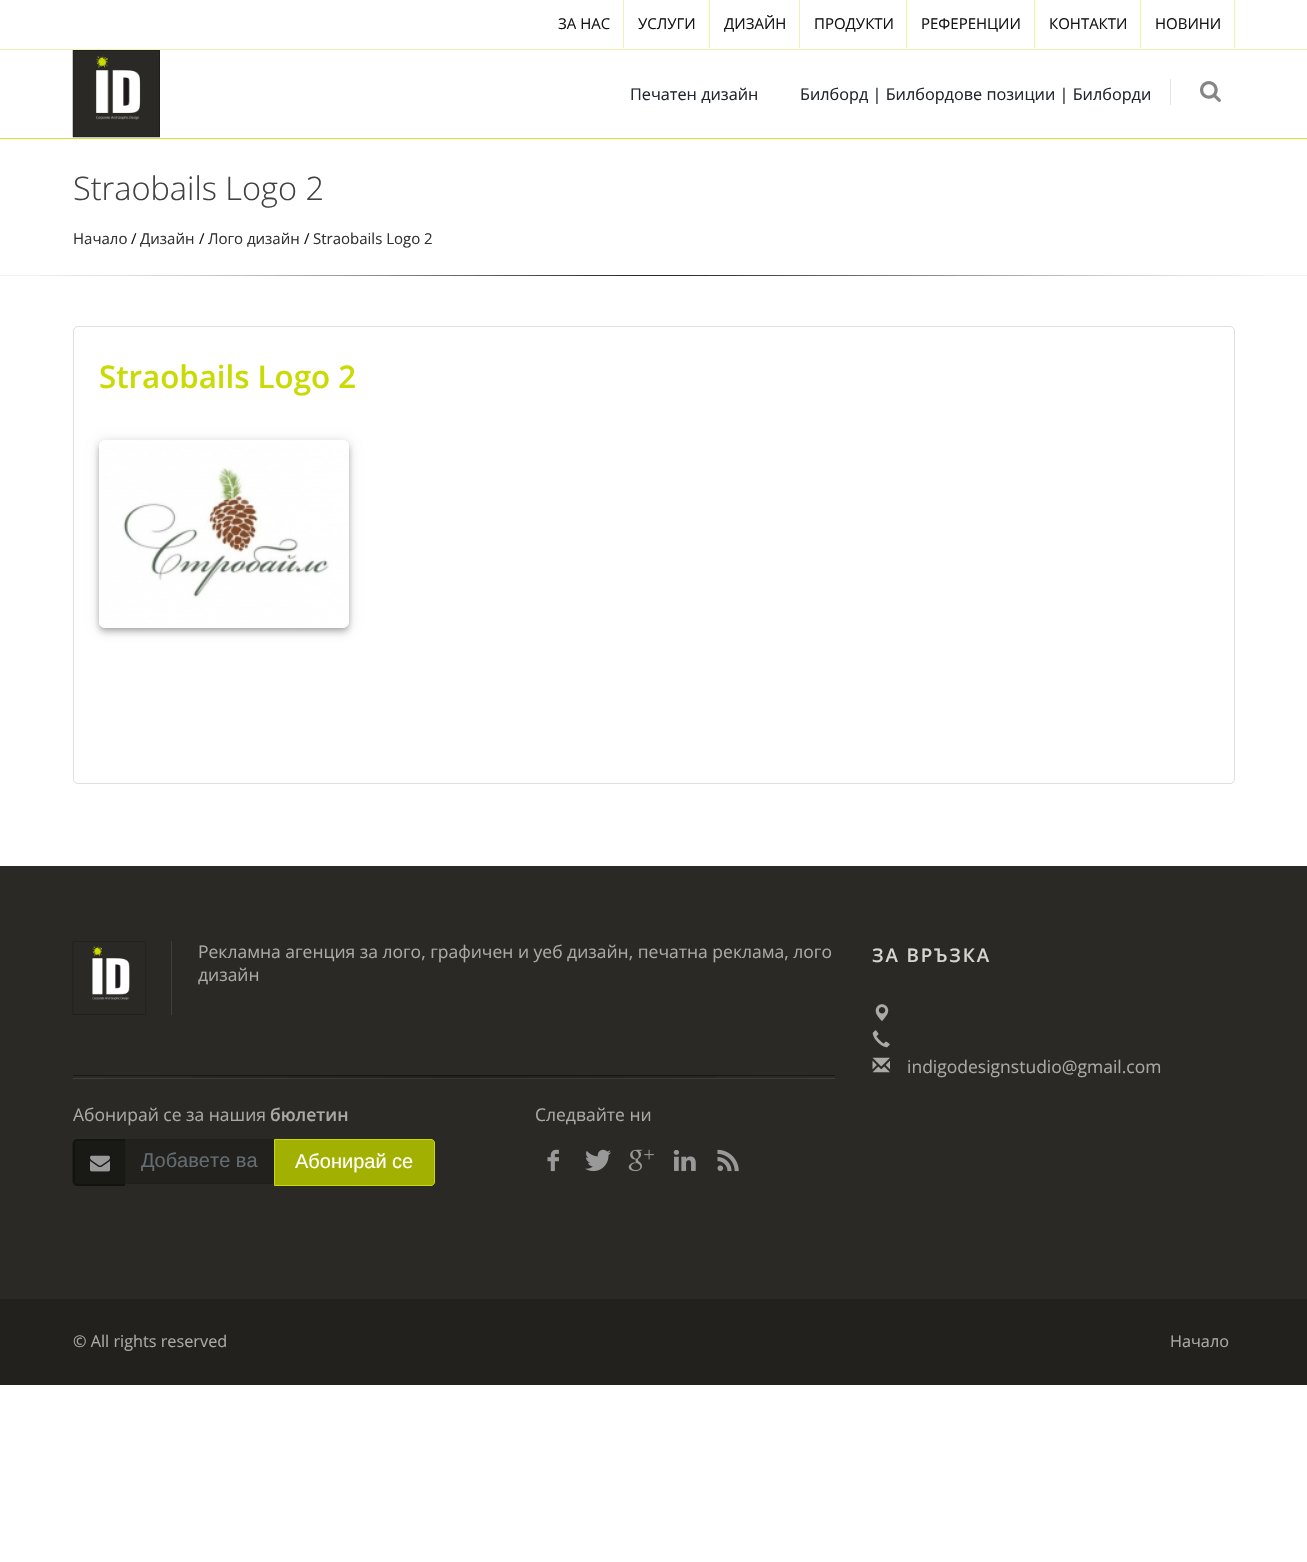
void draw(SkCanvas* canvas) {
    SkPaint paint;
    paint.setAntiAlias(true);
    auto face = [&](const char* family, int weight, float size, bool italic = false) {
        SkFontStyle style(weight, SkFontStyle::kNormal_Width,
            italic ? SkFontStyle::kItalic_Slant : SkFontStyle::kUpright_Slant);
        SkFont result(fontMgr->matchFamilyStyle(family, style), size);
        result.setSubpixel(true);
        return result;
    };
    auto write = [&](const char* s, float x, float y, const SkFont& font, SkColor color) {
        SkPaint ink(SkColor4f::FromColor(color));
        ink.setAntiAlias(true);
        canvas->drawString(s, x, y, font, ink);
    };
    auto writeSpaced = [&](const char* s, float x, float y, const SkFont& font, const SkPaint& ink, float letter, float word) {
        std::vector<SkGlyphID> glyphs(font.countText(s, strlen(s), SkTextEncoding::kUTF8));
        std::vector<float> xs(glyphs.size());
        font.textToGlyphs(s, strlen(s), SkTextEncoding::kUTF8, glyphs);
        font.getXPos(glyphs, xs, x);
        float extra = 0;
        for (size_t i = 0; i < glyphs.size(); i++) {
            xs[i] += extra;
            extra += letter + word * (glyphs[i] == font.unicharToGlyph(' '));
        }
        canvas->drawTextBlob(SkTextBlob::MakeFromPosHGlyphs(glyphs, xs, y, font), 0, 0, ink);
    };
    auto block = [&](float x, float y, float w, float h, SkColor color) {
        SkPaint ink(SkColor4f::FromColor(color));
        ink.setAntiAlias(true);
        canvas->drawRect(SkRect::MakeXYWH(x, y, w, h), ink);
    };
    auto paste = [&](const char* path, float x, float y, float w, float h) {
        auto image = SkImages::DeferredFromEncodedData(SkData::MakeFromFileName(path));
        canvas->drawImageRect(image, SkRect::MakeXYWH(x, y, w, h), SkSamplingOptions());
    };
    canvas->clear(SK_ColorWHITE);
    block(0, 49, 1307, 1, SkColorSetRGB(239, 244, 179));
    block(623, 0, 1, 48, SkColorSetRGB(239, 244, 179));
    auto kFont1 = face("Open Sans", 400, 15);
    write("ЗА НАС", 558, 29, kFont1, SkColorSetRGB(21, 21, 21));
    block(709, 0, 1, 48, SkColorSetRGB(239, 244, 179));
    write("УСЛУГИ", 638, 29, kFont1, SkColorSetRGB(21, 21, 21));
    block(799, 0, 1, 48, SkColorSetRGB(239, 244, 179));
    write("ДИЗАЙН", 724, 29, kFont1, SkColorSetRGB(21, 21, 21));
    block(906, 0, 1, 48, SkColorSetRGB(239, 244, 179));
    write("ПРОДУКТИ", 814, 29, kFont1, SkColorSetRGB(21, 21, 21));
    block(1034, 0, 1, 48, SkColorSetRGB(239, 244, 179));
    write("РЕФЕРЕНЦИИ", 921, 29, kFont1, SkColorSetRGB(21, 21, 21));
    block(1140, 0, 1, 48, SkColorSetRGB(239, 244, 179));
    write("КОНТАКТИ", 1049, 29, kFont1, SkColorSetRGB(21, 21, 21));
    block(1234, 0, 1, 48, SkColorSetRGB(239, 244, 179));
    write("НОВИНИ", 1155, 29, kFont1, SkColorSetRGB(21, 21, 21));
    paste("pic1.png", 72, 50, 88, 88);
    auto kFont2 = face("Open Sans", 400, 16.25f);
    write("Печатен дизайн", 630, 100, kFont2, SkColorSetRGB(31, 38, 45));
    write("Билборд | Билбордове позиции | Билборди", 800, 100, kFont2, SkColorSetRGB(31, 38, 45));
    block(1170, 79, 1, 26, SkColorSetRGB(230, 230, 230));
    paste("pic2.png", 1200, 81, 21, 21);
    block(0, 138, 1307, 1, SkColorSetRGB(213, 225, 53));
    block(0, 275, 1307, 1, SkColorSetRGB(242, 242, 242));
    auto kFont3 = face("Open Sans", 300, 32.5f);
    write("Straobails Logo 2", 73, 200, kFont3, SkColorSetRGB(65, 65, 65));
    write("Начало", 73, 244, kFont1, SkColorSetRGB(51, 51, 51));
    write("/", 131, 244, kFont1, SkColorSetRGB(21, 21, 21));
    write("Дизайн", 140, 244, kFont1, SkColorSetRGB(51, 51, 51));
    write("/", 199, 244, kFont1, SkColorSetRGB(21, 21, 21));
    write("Лого дизайн", 208, 244, kFont1, SkColorSetRGB(51, 51, 51));
    write("/", 304, 244, kFont1, SkColorSetRGB(21, 21, 21));
    write("Straobails Logo 2", 313, 244, kFont1, SkColorSetRGB(51, 51, 51));
    paste("pic3.png", 40, 275, 1223, 1);
    paint.setStyle(SkPaint::kStroke_Style);
    paint.setStrokeWidth(1);
    paint.setColor(SkColorSetARGB(31, 0, 0, 0));
    canvas->drawRoundRect(SkRect::MakeXYWH(73.5f, 326.5f, 1161, 457), 4.5f, 4.5f, paint);
    auto kFont4 = face("Open Sans", 600, 31.25f);
    write("Straobails Logo 2", 99, 388, kFont4, SkColorSetRGB(202, 219, 3));
    canvas->save();
    canvas->clipPath(SkPathBuilder(SkPathFillType::kEvenOdd).moveTo(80, 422).lineTo(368, 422).lineTo(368, 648).lineTo(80, 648).close().moveTo(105, 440).lineTo(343, 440).cubicTo(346.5f, 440, 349, 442.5f, 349, 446).lineTo(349, 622).cubicTo(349, 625.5f, 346.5f, 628, 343, 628).lineTo(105, 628).cubicTo(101.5f, 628, 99, 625.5f, 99, 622).lineTo(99, 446).cubicTo(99, 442.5f, 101.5f, 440, 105, 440).close().detach(), true);
    paint.setStyle(SkPaint::kFill_Style);
    paint.setMaskFilter(SkMaskFilter::MakeBlur(kNormal_SkBlurStyle, 6));
    canvas->drawRoundRect(SkRect::MakeXYWH(99, 441, 250, 188), 6, 6, paint);
    paint.setMaskFilter(nullptr);
    canvas->restore();
    canvas->save();
    canvas->clipPath(SkPathBuilder(SkPathFillType::kEvenOdd).moveTo(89, 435).lineTo(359, 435).lineTo(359, 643).lineTo(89, 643).close().moveTo(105, 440).lineTo(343, 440).cubicTo(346.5f, 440, 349, 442.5f, 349, 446).lineTo(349, 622).cubicTo(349, 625.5f, 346.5f, 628, 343, 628).lineTo(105, 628).cubicTo(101.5f, 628, 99, 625.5f, 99, 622).lineTo(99, 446).cubicTo(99, 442.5f, 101.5f, 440, 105, 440).close().detach(), true);
    paint.setColor(SkColorSetARGB(36, 0, 0, 0));
    paint.setMaskFilter(SkMaskFilter::MakeBlur(kNormal_SkBlurStyle, 3));
    canvas->drawRoundRect(SkRect::MakeXYWH(99, 445, 250, 188), 6, 6, paint);
    paint.setMaskFilter(nullptr);
    canvas->restore();
    canvas->save();
    canvas->clipPath(SkPathBuilder(SkPathFillType::kEvenOdd).moveTo(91, 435).lineTo(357, 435).lineTo(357, 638).lineTo(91, 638).close().moveTo(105, 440).lineTo(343, 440).cubicTo(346.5f, 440, 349, 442.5f, 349, 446).lineTo(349, 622).cubicTo(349, 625.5f, 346.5f, 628, 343, 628).lineTo(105, 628).cubicTo(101.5f, 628, 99, 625.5f, 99, 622).lineTo(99, 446).cubicTo(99, 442.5f, 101.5f, 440, 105, 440).close().detach(), true);
    paint.setColor(SkColorSetARGB(51, 0, 0, 0));
    paint.setMaskFilter(SkMaskFilter::MakeBlur(kNormal_SkBlurStyle, 2.5f));
    canvas->drawRoundRect(SkRect::MakeXYWH(100, 444, 248, 185), 5, 5, paint);
    paint.setMaskFilter(nullptr);
    canvas->restore();
    paste("pic4.png", 99, 444, 250, 184);
    block(0, 866, 1307, 433, SkColorSetRGB(42, 41, 37));
    block(171, 941, 1, 74, SkColorSetRGB(63, 62, 59));
    paste("pic5.png", 72, 941, 75, 74);
    auto kFont5 = face("Open Sans", 400, 17.5f);
    write("Рекламна агенция за лого, графичен и уеб дизайн, печатна реклама, лого", 198, 958, kFont5, SkColorSetRGB(170, 169, 168));
    write("дизайн", 198, 981, kFont5, SkColorSetRGB(170, 169, 168));
    {
        const SkColor colors[] = {SkColorSetRGB(42, 41, 37), SkColorSetRGB(34, 33, 30), SkColorSetRGB(42, 41, 37)};
        const float stops[] = {0, 0.5f, 1};
        const SkPoint ends[] = {{73, 1077}, {835, 1077}};
        paint.setShader(SkGradientShader::MakeLinear(ends, colors, stops, 3, SkTileMode::kClamp));
        paint.setAlpha(255);
    }
    canvas->drawRect(SkRect::MakeXYWH(192, 1076, 524, 2), paint);
    {
        const SkColor colors[] = {SkColorSetRGB(63, 62, 59), SkColorSetRGB(56, 55, 53), SkColorSetRGB(63, 62, 59)};
        const float stops[] = {0, 0.5f, 1};
        const SkPoint ends[] = {{73, 1077}, {835, 1077}};
        paint.setShader(SkGradientShader::MakeLinear(ends, colors, stops, 3, SkTileMode::kClamp));
        paint.setAlpha(255);
    }
    canvas->drawRect(SkRect::MakeXYWH(73, 1078, 762, 1), paint);
    {
        const SkColor colors[] = {SkColorSetRGB(25, 25, 22), SkColorSetRGB(20, 20, 18), SkColorSetRGB(25, 25, 22)};
        const float stops[] = {0, 0.5f, 1};
        const SkPoint ends[] = {{73, 1077}, {835, 1077}};
        paint.setShader(SkGradientShader::MakeLinear(ends, colors, stops, 3, SkTileMode::kClamp));
        paint.setAlpha(255);
    }
    canvas->drawRect(SkRect::MakeXYWH(73, 1075, 762, 1), paint);
    write("Абонирай се за нашия", 73, 1121, kFont5, SkColorSetRGB(170, 169, 168));
    auto kFont6 = face("Open Sans", 600, 17.5f);
    write("бюлетин", 270, 1121, kFont6, SkColorSetRGB(170, 169, 168));
    paint.setShader(nullptr);
    paint.setColor(SkColorSetRGB(25, 25, 22));
    canvas->drawPath(SkPathBuilder().moveTo(78, 1139).lineTo(125, 1139).lineTo(125, 1186).lineTo(78, 1186).cubicTo(75, 1186, 73, 1184, 73, 1181).lineTo(73, 1144).cubicTo(73, 1141, 75, 1139, 78, 1139).close().detach(), paint);
    paint.setColor(SkColorSetARGB(64, 0, 0, 0));
    canvas->drawPath(SkPathBuilder(SkPathFillType::kEvenOdd).moveTo(78, 1139).lineTo(125, 1139).lineTo(125, 1186).lineTo(78, 1186).cubicTo(75, 1186, 72, 1184, 72, 1181).lineTo(72, 1144).cubicTo(72, 1141, 75, 1139, 78, 1139).close().moveTo(78, 1141).lineTo(125, 1141).lineTo(125, 1184).lineTo(78, 1184).cubicTo(76, 1184, 75, 1183, 75, 1181).lineTo(75, 1144).cubicTo(75, 1142, 76, 1141, 78, 1141).close().detach(), paint);
    paste("pic6.png", 90, 1155, 20, 17);
    paint.setColor(SkColorSetRGB(34, 33, 30));
    canvas->drawRect(SkRect::MakeXYWH(125.5f, 1139.5f, 148, 44), paint);
    paint.setStyle(SkPaint::kStroke_Style);
    paint.setColor(SkColorSetRGB(32, 31, 28));
    canvas->drawRect(SkRect::MakeXYWH(125.5f, 1139.5f, 148, 44), paint);
    auto kFont7 = face("Liberation Sans", 400, 20);
    write("Добавете ва", 141, 1167, kFont7, SkColorSetRGB(99, 108, 114));
    paint.setStyle(SkPaint::kFill_Style);
    paint.setColor(SkColorSetRGB(162, 177, 1));
    canvas->drawPath(SkPathBuilder().moveTo(274.5f, 1139.5f).lineTo(431, 1139.5f).cubicTo(433, 1139.5f, 434.5f, 1141, 434.5f, 1143).lineTo(434.5f, 1182).cubicTo(434.5f, 1184, 433, 1185.5f, 431, 1185.5f).lineTo(274.5f, 1185.5f).close().detach(), paint);
    paint.setStyle(SkPaint::kStroke_Style);
    paint.setColor(SkColorSetRGB(202, 219, 2));
    canvas->drawPath(SkPathBuilder().moveTo(274.5f, 1139.5f).lineTo(431, 1139.5f).cubicTo(433, 1139.5f, 434.5f, 1141, 434.5f, 1143).lineTo(434.5f, 1182).cubicTo(434.5f, 1184, 433, 1185.5f, 431, 1185.5f).lineTo(274.5f, 1185.5f).close().detach(), paint);
    write("Абонирай се", 295, 1168, kFont7, SK_ColorWHITE);
    write("Следвайте ни", 535, 1121, kFont5, SkColorSetRGB(170, 169, 168));
    paste("pic7.png", 547, 1149, 12, 23);
    paste("pic8.png", 585, 1149, 26, 23);
    paste("pic9.png", 628, 1149, 26, 23);
    paste("pic10.png", 673, 1149, 23, 22);
    paste("pic11.png", 717, 1149, 22, 23);
    auto kFont8 = face("Open Sans", 600, 18.75f);
    paint.setStyle(SkPaint::kFill_Style);
    paint.setColor(SkColorSetRGB(212, 212, 211));
    writeSpaced("ЗА ВРЪЗКА", 872, 962, kFont8, paint, 1.9f, 0);
    paste("pic12.png", 875, 1004, 14, 17);
    paste("pic13.png", 872, 1030, 18, 18);
    paste("pic14.png", 872, 1057, 18, 16);
    write("indigodesignstudio@gmail.com", 907, 1073, kFont5, SkColorSetRGB(170, 169, 168));
    block(0, 1299, 1307, 86, SkColorSetRGB(34, 33, 30));
    write("© All rights reserved", 73, 1347, kFont2, SkColorSetRGB(170, 169, 168));
    write("Начало", 1170, 1347, kFont2, SkColorSetRGB(170, 169, 168));
}
